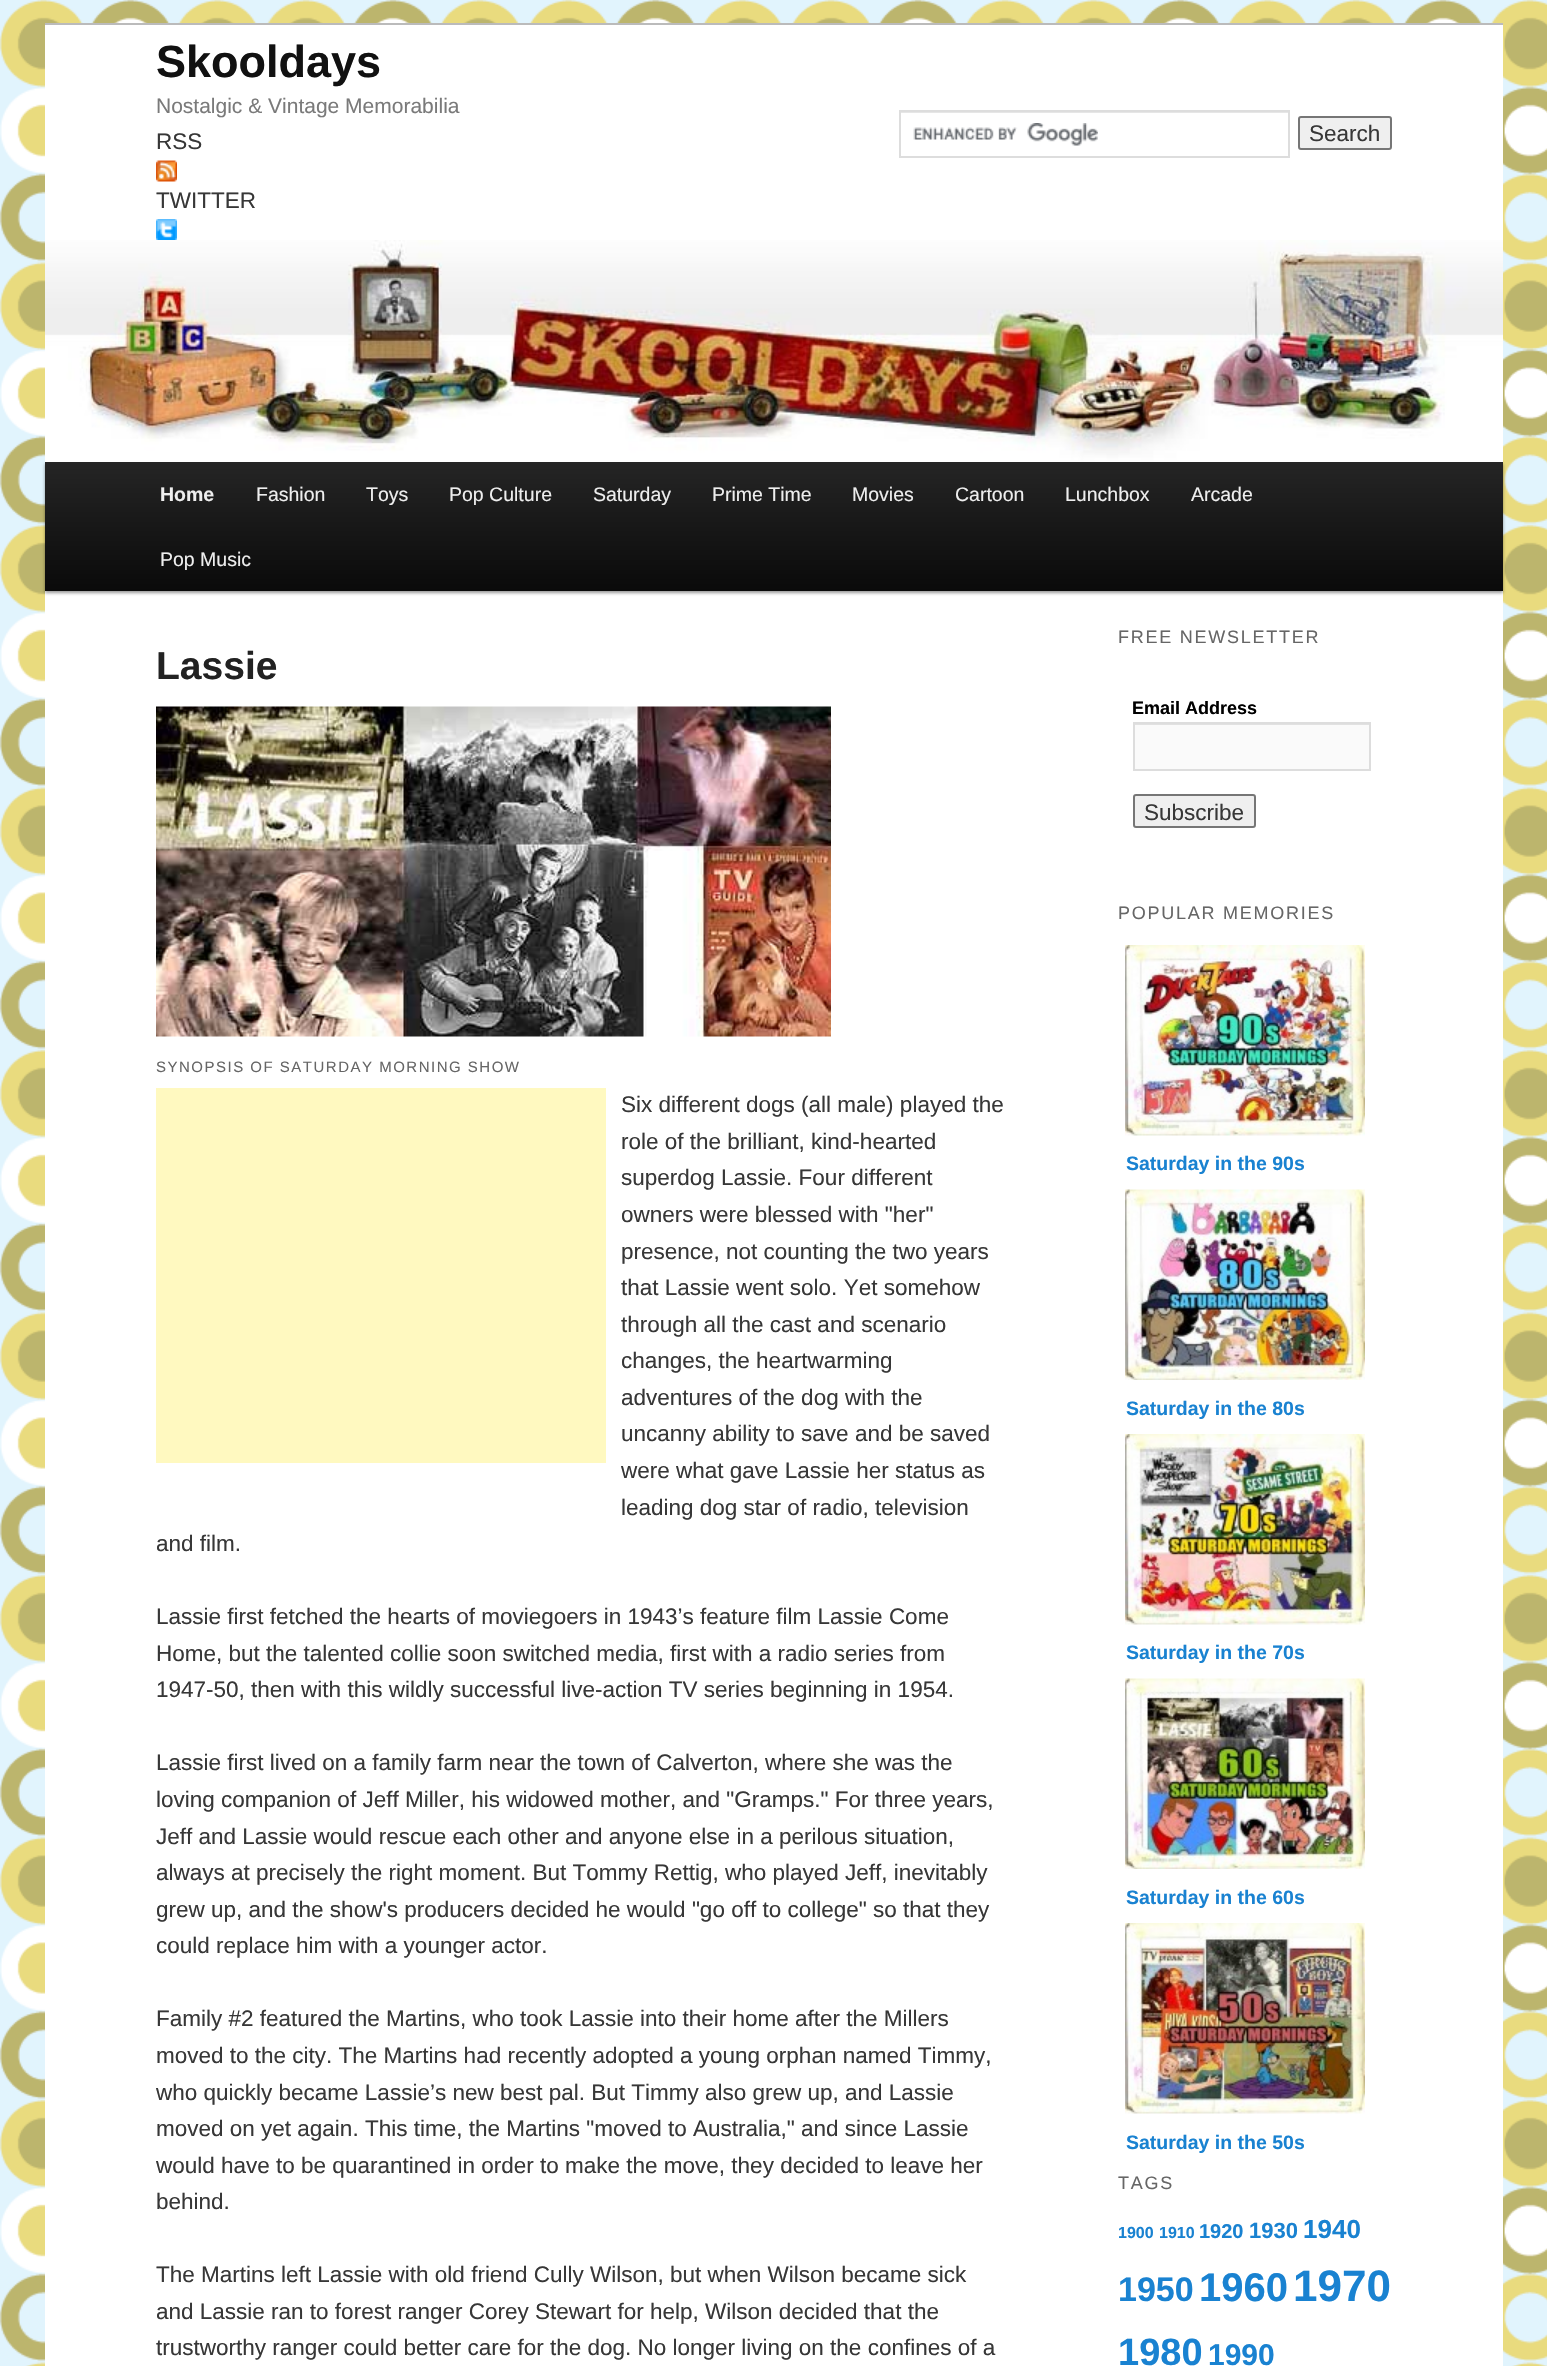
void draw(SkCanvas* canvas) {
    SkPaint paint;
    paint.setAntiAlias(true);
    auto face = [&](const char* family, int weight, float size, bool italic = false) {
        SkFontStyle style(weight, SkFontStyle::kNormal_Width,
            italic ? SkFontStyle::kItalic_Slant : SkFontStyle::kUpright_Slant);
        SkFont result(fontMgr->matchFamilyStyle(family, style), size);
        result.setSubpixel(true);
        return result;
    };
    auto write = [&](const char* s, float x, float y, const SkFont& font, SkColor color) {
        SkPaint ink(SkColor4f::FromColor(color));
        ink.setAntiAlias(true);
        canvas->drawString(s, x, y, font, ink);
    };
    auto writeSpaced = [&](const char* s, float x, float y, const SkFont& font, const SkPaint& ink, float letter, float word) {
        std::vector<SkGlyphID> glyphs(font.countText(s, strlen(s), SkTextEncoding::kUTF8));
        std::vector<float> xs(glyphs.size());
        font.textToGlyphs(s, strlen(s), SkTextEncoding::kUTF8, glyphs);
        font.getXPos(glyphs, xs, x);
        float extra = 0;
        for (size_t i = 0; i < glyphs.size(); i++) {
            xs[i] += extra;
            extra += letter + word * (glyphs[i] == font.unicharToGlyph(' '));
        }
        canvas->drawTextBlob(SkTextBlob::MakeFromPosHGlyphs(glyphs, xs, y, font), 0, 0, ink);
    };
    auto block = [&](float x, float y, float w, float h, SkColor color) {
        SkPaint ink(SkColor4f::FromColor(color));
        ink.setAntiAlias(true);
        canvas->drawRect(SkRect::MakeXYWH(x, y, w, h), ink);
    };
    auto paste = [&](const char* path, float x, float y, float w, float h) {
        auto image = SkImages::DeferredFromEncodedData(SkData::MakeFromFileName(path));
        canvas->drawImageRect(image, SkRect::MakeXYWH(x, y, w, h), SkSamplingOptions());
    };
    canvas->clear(SK_ColorWHITE);
    paste("pic1.png", 0, 0, 1547, 2366);
    block(45, 25, 1458, 2341, SK_ColorWHITE);
    block(45, 23, 1458, 2, SkColorSetRGB(187, 187, 187));
    auto kFont1 = face("Liberation Sans", 700, 45);
    write("Skooldays", 156, 77, kFont1, SkColorSetRGB(17, 17, 17));
    auto kFont2 = face("Liberation Sans", 400, 21);
    write("Nostalgic & Vintage Memorabilia", 156, 113, kFont2, SkColorSetRGB(122, 122, 122));
    auto kFont3 = face("Liberation Sans", 400, 22.5f);
    write("RSS", 156, 149, kFont3, SkColorSetRGB(55, 55, 55));
    paste("pic2.png", 156, 160, 21, 22);
    write("TWITTER", 156, 208, kFont3, SkColorSetRGB(55, 55, 55));
    paste("pic3.png", 156, 219, 21, 21);
    paste("pic4.png", 913, 123, 185, 23);
    block(900, 112, 389, 1, SkColorSetRGB(230, 230, 230));
    paint.setStyle(SkPaint::kStroke_Style);
    paint.setStrokeWidth(2);
    paint.setColor(SkColorSetRGB(221, 221, 221));
    canvas->drawRect(SkRect::MakeXYWH(900, 111, 389, 46), paint);
    paint.setStyle(SkPaint::kFill_Style);
    paint.setColor(SkColorSetRGB(239, 239, 239));
    canvas->drawRoundRect(SkRect::MakeXYWH(1299, 117, 92, 32), 2, 2, paint);
    paint.setStyle(SkPaint::kStroke_Style);
    paint.setColor(SkColorSetRGB(118, 118, 118));
    canvas->drawRoundRect(SkRect::MakeXYWH(1299, 117, 92, 32), 2, 2, paint);
    write("Search", 1309, 141, kFont3, SkColorSetRGB(55, 55, 55));
    paint.setStyle(SkPaint::kFill_Style);
    paint.setColor(SkColorSetARGB(102, 0, 0, 0));
    paint.setMaskFilter(SkMaskFilter::MakeBlur(kNormal_SkBlurStyle, 1.5f));
    canvas->drawRect(SkRect::MakeXYWH(45, 464, 1458, 129), paint);
    paint.setMaskFilter(nullptr);
    paste("pic5.png", 45, 240, 1458, 222);
    {
        const SkColor colors[] = {SkColorSetRGB(37, 37, 37), SkColorSetRGB(10, 10, 10)};
        const float stops[] = {0, 1};
        const SkPoint ends[] = {{774, 462}, {774, 591}};
        paint.setShader(SkGradientShader::MakeLinear(ends, colors, stops, 2, SkTileMode::kClamp));
        paint.setAlpha(255);
    }
    canvas->drawRect(SkRect::MakeXYWH(45, 462, 1458, 129), paint);
    auto kFont4 = face("Liberation Sans", 700, 19.5f);
    write("Home", 160, 501, kFont4, SkColorSetRGB(238, 238, 238));
    auto kFont5 = face("Liberation Sans", 400, 19.5f);
    write("Fashion", 256, 501, kFont5, SkColorSetRGB(238, 238, 238));
    write("Toys", 366, 501, kFont5, SkColorSetRGB(238, 238, 238));
    write("Pop Culture", 449, 501, kFont5, SkColorSetRGB(238, 238, 238));
    write("Saturday", 593, 501, kFont5, SkColorSetRGB(238, 238, 238));
    write("Prime Time", 712, 501, kFont5, SkColorSetRGB(238, 238, 238));
    write("Movies", 852, 501, kFont5, SkColorSetRGB(238, 238, 238));
    write("Cartoon", 955, 501, kFont5, SkColorSetRGB(238, 238, 238));
    write("Lunchbox", 1065, 501, kFont5, SkColorSetRGB(238, 238, 238));
    write("Arcade", 1191, 501, kFont5, SkColorSetRGB(238, 238, 238));
    write("Pop Music", 160, 566, kFont5, SkColorSetRGB(238, 238, 238));
    auto kFont6 = face("Liberation Sans", 700, 39);
    write("Lassie", 156, 679, kFont6, SkColorSetRGB(34, 34, 34));
    paste("pic6.png", 156, 706, 675, 331);
    auto kFont7 = face("Liberation Sans", 400, 15);
    paint.setShader(nullptr);
    paint.setColor(SkColorSetRGB(102, 102, 102));
    writeSpaced("SYNOPSIS OF SATURDAY MORNING SHOW", 156, 1072, kFont7, paint, 1.5f, 0);
    block(156, 1088, 450, 375, SkColorSetRGB(255, 249, 192));
    write("Six different dogs (all male) played the", 621, 1112, kFont3, SkColorSetRGB(55, 55, 55));
    write("role of the brilliant, kind-hearted", 621, 1149, kFont3, SkColorSetRGB(55, 55, 55));
    write("superdog Lassie. Four different", 621, 1185, kFont3, SkColorSetRGB(55, 55, 55));
    write("owners were blessed with \"her\"", 621, 1222, kFont3, SkColorSetRGB(55, 55, 55));
    write("presence, not counting the two years", 621, 1259, kFont3, SkColorSetRGB(55, 55, 55));
    write("that Lassie went solo. Yet somehow", 621, 1295, kFont3, SkColorSetRGB(55, 55, 55));
    write("through all the cast and scenario", 621, 1332, kFont3, SkColorSetRGB(55, 55, 55));
    write("changes, the heartwarming", 621, 1368, kFont3, SkColorSetRGB(55, 55, 55));
    write("adventures of the dog with the", 621, 1405, kFont3, SkColorSetRGB(55, 55, 55));
    write("uncanny ability to save and be saved", 621, 1441, kFont3, SkColorSetRGB(55, 55, 55));
    write("were what gave Lassie her status as", 621, 1478, kFont3, SkColorSetRGB(55, 55, 55));
    write("leading dog star of radio, television", 621, 1515, kFont3, SkColorSetRGB(55, 55, 55));
    write("and film.", 156, 1551, kFont3, SkColorSetRGB(55, 55, 55));
    write("Lassie first fetched the hearts of moviegoers in 1943’s feature film Lassie Come", 156, 1624, kFont3, SkColorSetRGB(55, 55, 55));
    write("Home, but the talented collie soon switched media, first with a radio series from", 156, 1661, kFont3, SkColorSetRGB(55, 55, 55));
    write("1947-50, then with this wildly successful live-action TV series beginning in 1954.", 156, 1697, kFont3, SkColorSetRGB(55, 55, 55));
    write("Lassie first lived on a family farm near the town of Calverton, where she was the", 156, 1770, kFont3, SkColorSetRGB(55, 55, 55));
    write("loving companion of Jeff Miller, his widowed mother, and \"Gramps.\" For three years,", 156, 1807, kFont3, SkColorSetRGB(55, 55, 55));
    write("Jeff and Lassie would rescue each other and anyone else in a perilous situation,", 156, 1844, kFont3, SkColorSetRGB(55, 55, 55));
    write("always at precisely the right moment. But Tommy Rettig, who played Jeff, inevitably", 156, 1880, kFont3, SkColorSetRGB(55, 55, 55));
    write("grew up, and the show's producers decided he would \"go off to college\" so that they", 156, 1917, kFont3, SkColorSetRGB(55, 55, 55));
    write("could replace him with a younger actor.", 156, 1953, kFont3, SkColorSetRGB(55, 55, 55));
    write("Family #2 featured the Martins, who took Lassie into their home after the Millers", 156, 2026, kFont3, SkColorSetRGB(55, 55, 55));
    write("moved to the city. The Martins had recently adopted a young orphan named Timmy,", 156, 2063, kFont3, SkColorSetRGB(55, 55, 55));
    write("who quickly became Lassie’s new best pal. But Timmy also grew up, and Lassie", 156, 2100, kFont3, SkColorSetRGB(55, 55, 55));
    write("moved on yet again. This time, the Martins \"moved to Australia,\" and since Lassie", 156, 2136, kFont3, SkColorSetRGB(55, 55, 55));
    write("would have to be quarantined in order to make the move, they decided to leave her", 156, 2173, kFont3, SkColorSetRGB(55, 55, 55));
    write("behind.", 156, 2209, kFont3, SkColorSetRGB(55, 55, 55));
    write("The Martins left Lassie with old friend Cully Wilson, but when Wilson became sick", 156, 2282, kFont3, SkColorSetRGB(55, 55, 55));
    write("and Lassie ran to forest ranger Corey Stewart for help, Wilson decided that the", 156, 2319, kFont3, SkColorSetRGB(55, 55, 55));
    write("trustworthy ranger could better care for the dog. No longer living on the confines of a", 156, 2355, kFont3, SkColorSetRGB(55, 55, 55));
    auto kFont8 = face("Liberation Sans", 400, 18);
    writeSpaced("FREE NEWSLETTER", 1118, 643, kFont8, paint, 1.75f, 0);
    auto kFont9 = face("Liberation Sans", 700, 18);
    write("Email Address", 1132, 714, kFont9, SK_ColorBLACK);
    block(1135, 725, 234, 44, SkColorSetRGB(250, 250, 250));
    block(1134, 724, 236, 1, SkColorSetRGB(225, 225, 225));
    paint.setStyle(SkPaint::kStroke_Style);
    paint.setColor(SkColorSetRGB(221, 221, 221));
    canvas->drawRect(SkRect::MakeXYWH(1134, 723, 236, 47), paint);
    paint.setStyle(SkPaint::kFill_Style);
    paint.setColor(SkColorSetRGB(239, 239, 239));
    canvas->drawRoundRect(SkRect::MakeXYWH(1134, 795, 121, 32), 2, 2, paint);
    paint.setStyle(SkPaint::kStroke_Style);
    paint.setColor(SkColorSetRGB(118, 118, 118));
    canvas->drawRoundRect(SkRect::MakeXYWH(1134, 795, 121, 32), 2, 2, paint);
    write("Subscribe", 1144, 820, kFont3, SkColorSetRGB(55, 55, 55));
    paint.setStyle(SkPaint::kFill_Style);
    paint.setColor(SkColorSetRGB(102, 102, 102));
    writeSpaced("POPULAR MEMORIES", 1118, 919, kFont8, paint, 1.75f, 0);
    paste("pic7.png", 1125, 945, 240, 191);
    write("Saturday in the 90s", 1126, 1170, kFont4, SkColorSetRGB(25, 130, 209));
    paste("pic8.png", 1125, 1189, 240, 191);
    write("Saturday in the 80s", 1126, 1415, kFont4, SkColorSetRGB(25, 130, 209));
    paste("pic9.png", 1125, 1434, 240, 191);
    write("Saturday in the 70s", 1126, 1659, kFont4, SkColorSetRGB(25, 130, 209));
    paste("pic10.png", 1125, 1678, 240, 191);
    write("Saturday in the 60s", 1126, 1904, kFont4, SkColorSetRGB(25, 130, 209));
    paste("pic11.png", 1125, 1923, 240, 191);
    write("Saturday in the 50s", 1126, 2149, kFont4, SkColorSetRGB(25, 130, 209));
    writeSpaced("TAGS", 1118, 2189, kFont8, paint, 1.75f, 0);
    auto kFont10 = face("Liberation Sans", 700, 16);
    write("1900", 1118, 2238, kFont10, SkColorSetRGB(25, 130, 209));
    write("1910", 1159, 2238, kFont10, SkColorSetRGB(25, 130, 209));
    auto kFont11 = face("Liberation Sans", 700, 20);
    write("1920", 1199, 2238, kFont11, SkColorSetRGB(25, 130, 209));
    auto kFont12 = face("Liberation Sans", 700, 22);
    write("1930", 1249, 2238, kFont12, SkColorSetRGB(25, 130, 209));
    auto kFont13 = face("Liberation Sans", 700, 26);
    write("1940", 1303, 2238, kFont13, SkColorSetRGB(25, 130, 209));
    auto kFont14 = face("Liberation Sans", 700, 34);
    write("1950", 1118, 2301, kFont14, SkColorSetRGB(25, 130, 209));
    auto kFont15 = face("Liberation Sans", 700, 40);
    write("1960", 1199, 2301, kFont15, SkColorSetRGB(25, 130, 209));
    auto kFont16 = face("Liberation Sans", 700, 44);
    write("1970", 1293, 2301, kFont16, SkColorSetRGB(25, 130, 209));
    auto kFont17 = face("Liberation Sans", 700, 38);
    write("1980", 1118, 2365, kFont17, SkColorSetRGB(25, 130, 209));
    auto kFont18 = face("Liberation Sans", 700, 30);
    write("1990", 1208, 2365, kFont18, SkColorSetRGB(25, 130, 209));
}
